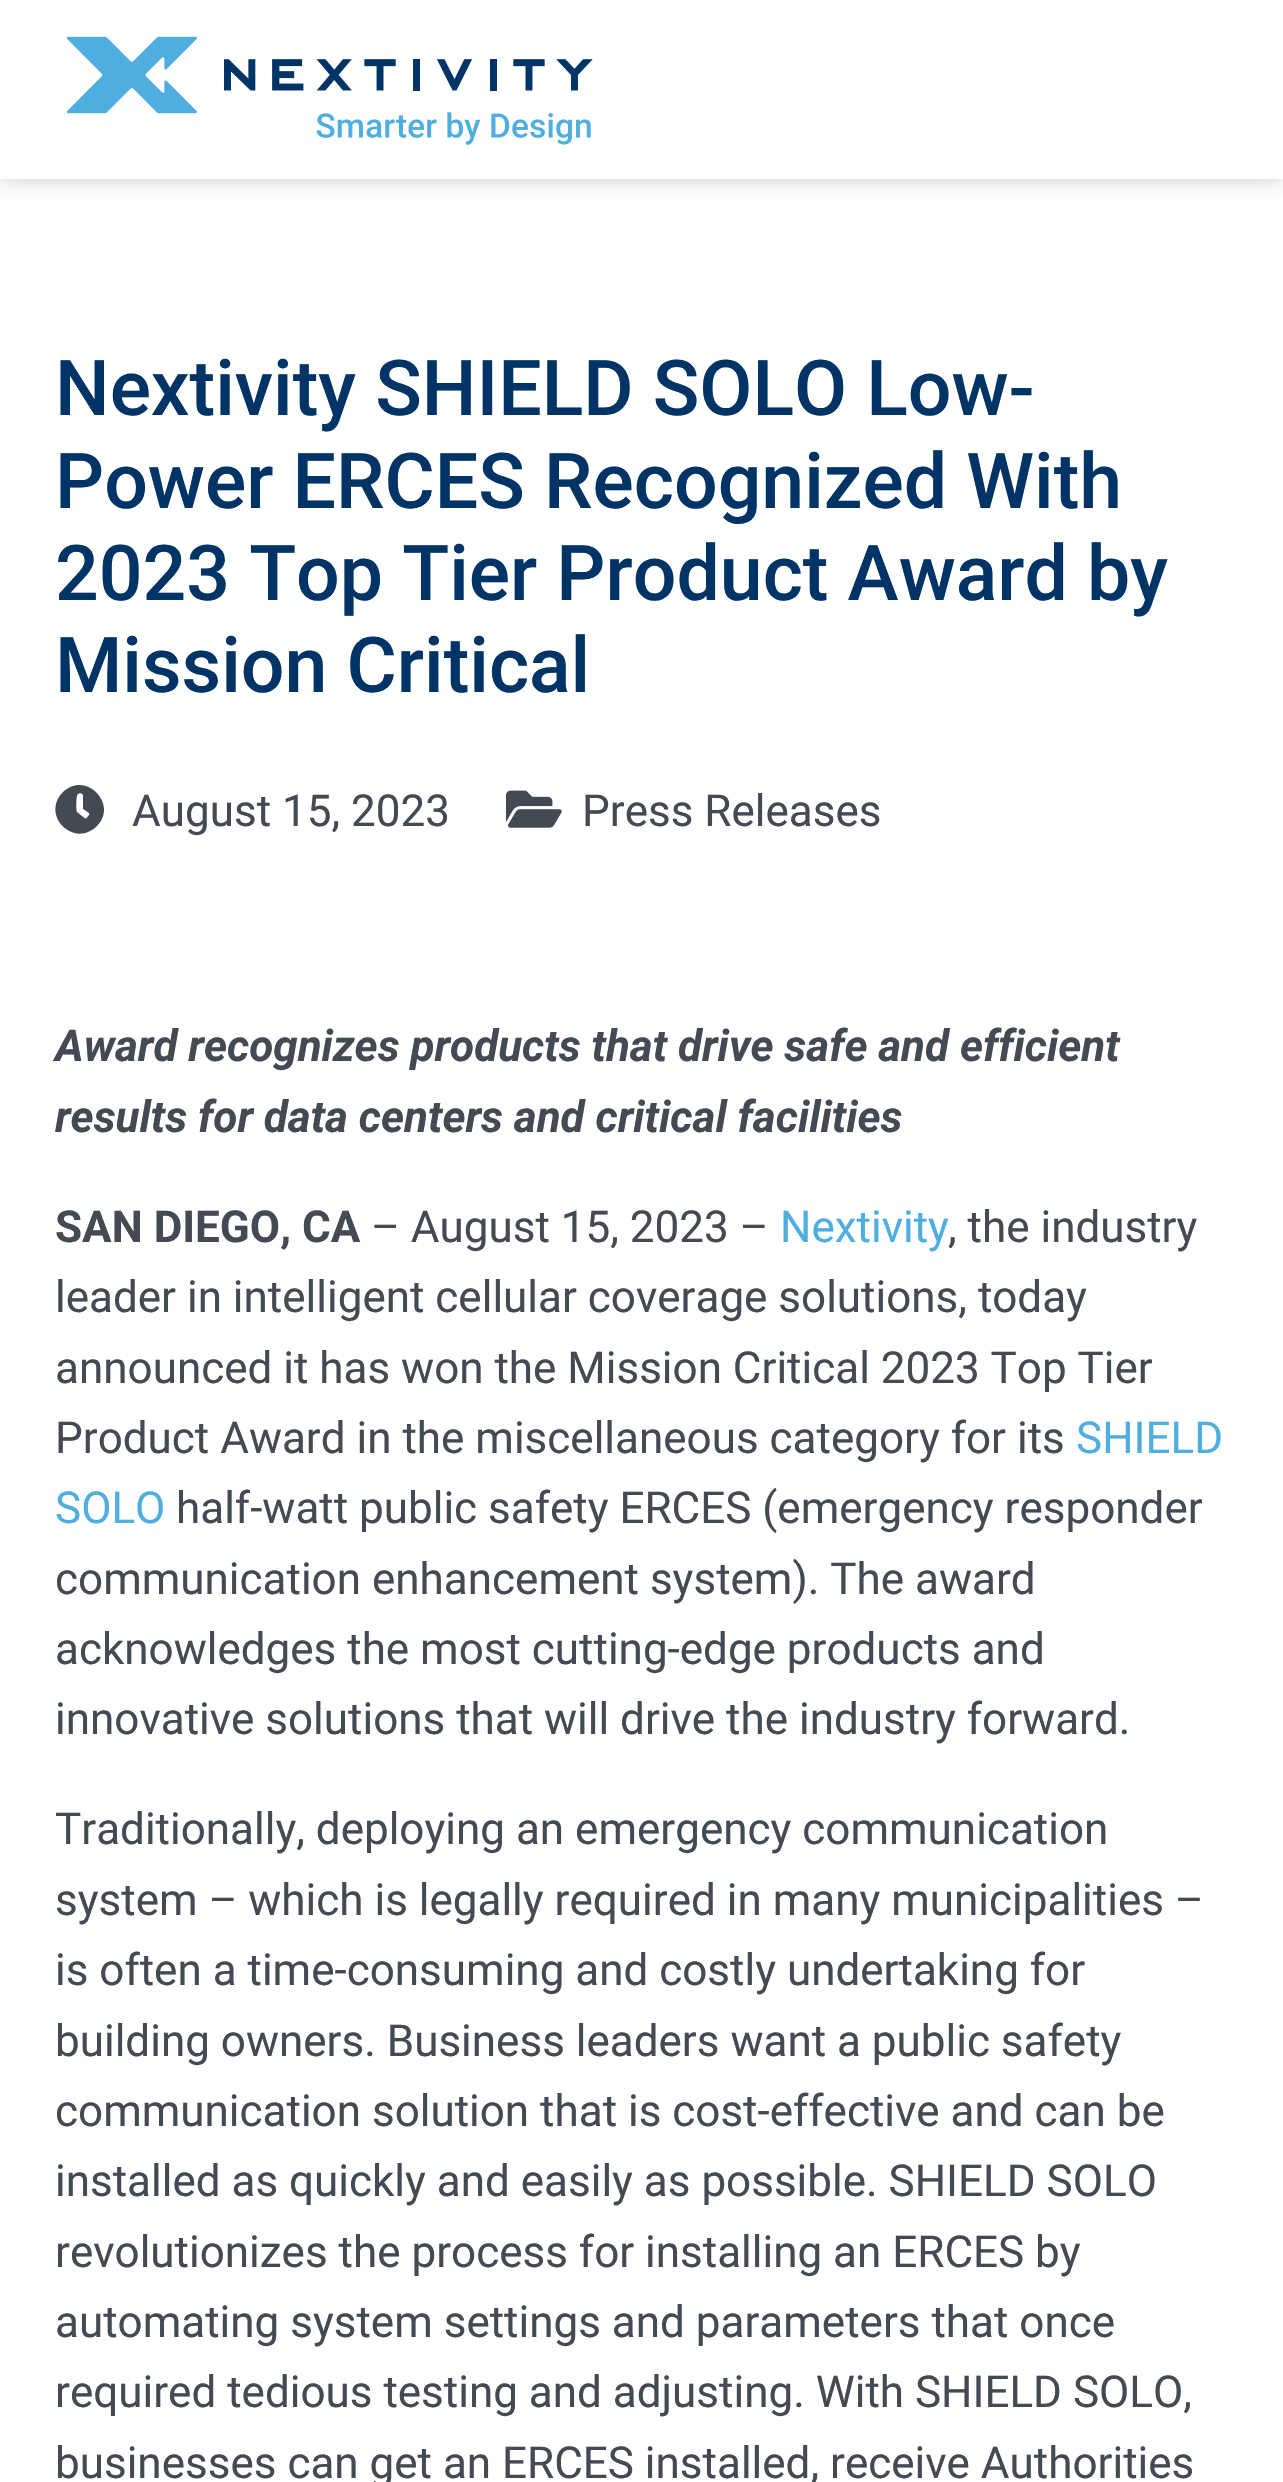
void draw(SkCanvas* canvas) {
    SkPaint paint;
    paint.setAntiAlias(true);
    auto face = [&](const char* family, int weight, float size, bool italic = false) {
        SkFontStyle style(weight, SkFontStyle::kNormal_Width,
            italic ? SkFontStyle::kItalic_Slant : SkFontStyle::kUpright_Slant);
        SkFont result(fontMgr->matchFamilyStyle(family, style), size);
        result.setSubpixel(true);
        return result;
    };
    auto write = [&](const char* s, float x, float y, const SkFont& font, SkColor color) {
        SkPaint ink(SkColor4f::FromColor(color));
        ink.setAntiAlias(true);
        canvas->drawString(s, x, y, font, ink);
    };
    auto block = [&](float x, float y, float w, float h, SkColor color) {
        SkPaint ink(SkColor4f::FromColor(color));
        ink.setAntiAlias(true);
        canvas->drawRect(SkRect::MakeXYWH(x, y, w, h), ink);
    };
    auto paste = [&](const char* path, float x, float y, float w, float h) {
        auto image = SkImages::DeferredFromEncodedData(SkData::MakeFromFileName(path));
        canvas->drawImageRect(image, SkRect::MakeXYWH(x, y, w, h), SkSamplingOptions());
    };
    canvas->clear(SK_ColorWHITE);
    paint.setColor(SkColorSetARGB(128, 0, 0, 0));
    paint.setMaskFilter(SkMaskFilter::MakeBlur(kNormal_SkBlurStyle, 14));
    canvas->drawRect(SkRect::MakeXYWH(0, -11, 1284, 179), paint);
    paint.setMaskFilter(nullptr);
    block(0, 0, 1283, 179, SK_ColorWHITE);
    paste("pic1.png", 66, 36, 527, 109);
    auto kFont1 = face("Roboto", 500, 77);
    write("Nextivity SHIELD SOLO Low-", 55, 415, kFont1, SkColorSetRGB(0, 51, 102));
    write("Power ERCES Recognized With", 55, 508, kFont1, SkColorSetRGB(0, 51, 102));
    write("2023 Top Tier Product Award by", 55, 600, kFont1, SkColorSetRGB(0, 51, 102));
    write("Mission Critical", 55, 692, kFont1, SkColorSetRGB(0, 51, 102));
    paint.setColor(SkColorSetRGB(67, 74, 84));
    canvas->drawPath(SkPathBuilder().moveTo(63, 792).cubicTo(85, 770, 119, 804, 97, 826).cubicTo(74, 849, 40, 815, 63, 792).close().moveTo(89, 815).cubicTo(91, 813, 84, 810, 83, 809).lineTo(83, 795).cubicTo(82, 793, 79, 793, 78, 794).cubicTo(76, 795, 76, 810, 77, 812).lineTo(82, 816).cubicTo(86, 819, 85, 820, 89, 815).close().detach(), paint);
    auto kFont2 = face("Roboto", 400, 44);
    write("August 15, 2023", 132, 826, kFont2, SkColorSetRGB(67, 74, 84));
    paste("pic2.png", 506, 790, 56, 38);
    write("Press Releases", 582, 826, kFont2, SkColorSetRGB(67, 74, 84));
    auto kFont3 = face("Roboto", 700, 44, true);
    write("Award recognizes products that drive safe and efficient", 55, 1061, kFont3, SkColorSetRGB(67, 74, 84));
    write("results for data centers and critical facilities", 55, 1132, kFont3, SkColorSetRGB(67, 74, 84));
    auto kFont4 = face("Roboto", 700, 44);
    write("SAN DIEGO, CA", 55, 1242, kFont4, SkColorSetRGB(67, 74, 84));
    write("– August 15, 2023 –", 371, 1242, kFont2, SkColorSetRGB(67, 74, 84));
    write("Nextivity", 780, 1242, kFont2, SkColorSetRGB(79, 174, 224));
    write(", the industry", 948, 1242, kFont2, SkColorSetRGB(67, 74, 84));
    write("leader in intelligent cellular coverage solutions, today", 55, 1312, kFont2, SkColorSetRGB(67, 74, 84));
    write("announced it has won the Mission Critical 2023 Top Tier", 55, 1383, kFont2, SkColorSetRGB(67, 74, 84));
    write("Product Award in the miscellaneous category for its", 55, 1453, kFont2, SkColorSetRGB(67, 74, 84));
    write("SHIELD", 1076, 1453, kFont2, SkColorSetRGB(79, 174, 224));
    write("SOLO", 55, 1523, kFont2, SkColorSetRGB(79, 174, 224));
    write("half-watt public safety ERCES (emergency responder", 176, 1523, kFont2, SkColorSetRGB(67, 74, 84));
    write("communication enhancement system). The award", 55, 1594, kFont2, SkColorSetRGB(67, 74, 84));
    write("acknowledges the most cutting-edge products and", 55, 1664, kFont2, SkColorSetRGB(67, 74, 84));
    write("innovative solutions that will drive the industry forward.", 55, 1734, kFont2, SkColorSetRGB(67, 74, 84));
    write("Traditionally, deploying an emergency communication", 55, 1844, kFont2, SkColorSetRGB(67, 74, 84));
    write("system – which is legally required in many municipalities –", 55, 1915, kFont2, SkColorSetRGB(67, 74, 84));
    write("is often a time-consuming and costly undertaking for", 55, 1985, kFont2, SkColorSetRGB(67, 74, 84));
    write("building owners. Business leaders want a public safety", 55, 2056, kFont2, SkColorSetRGB(67, 74, 84));
    write("communication solution that is cost-effective and can be", 55, 2126, kFont2, SkColorSetRGB(67, 74, 84));
    write("installed as quickly and easily as possible. SHIELD SOLO", 55, 2196, kFont2, SkColorSetRGB(67, 74, 84));
    write("revolutionizes the process for installing an ERCES by", 55, 2267, kFont2, SkColorSetRGB(67, 74, 84));
    write("automating system settings and parameters that once", 55, 2337, kFont2, SkColorSetRGB(67, 74, 84));
    write("required tedious testing and adjusting. With SHIELD SOLO,", 55, 2407, kFont2, SkColorSetRGB(67, 74, 84));
    write("businesses can get an ERCES installed, receive Authorities", 55, 2478, kFont2, SkColorSetRGB(67, 74, 84));
}
